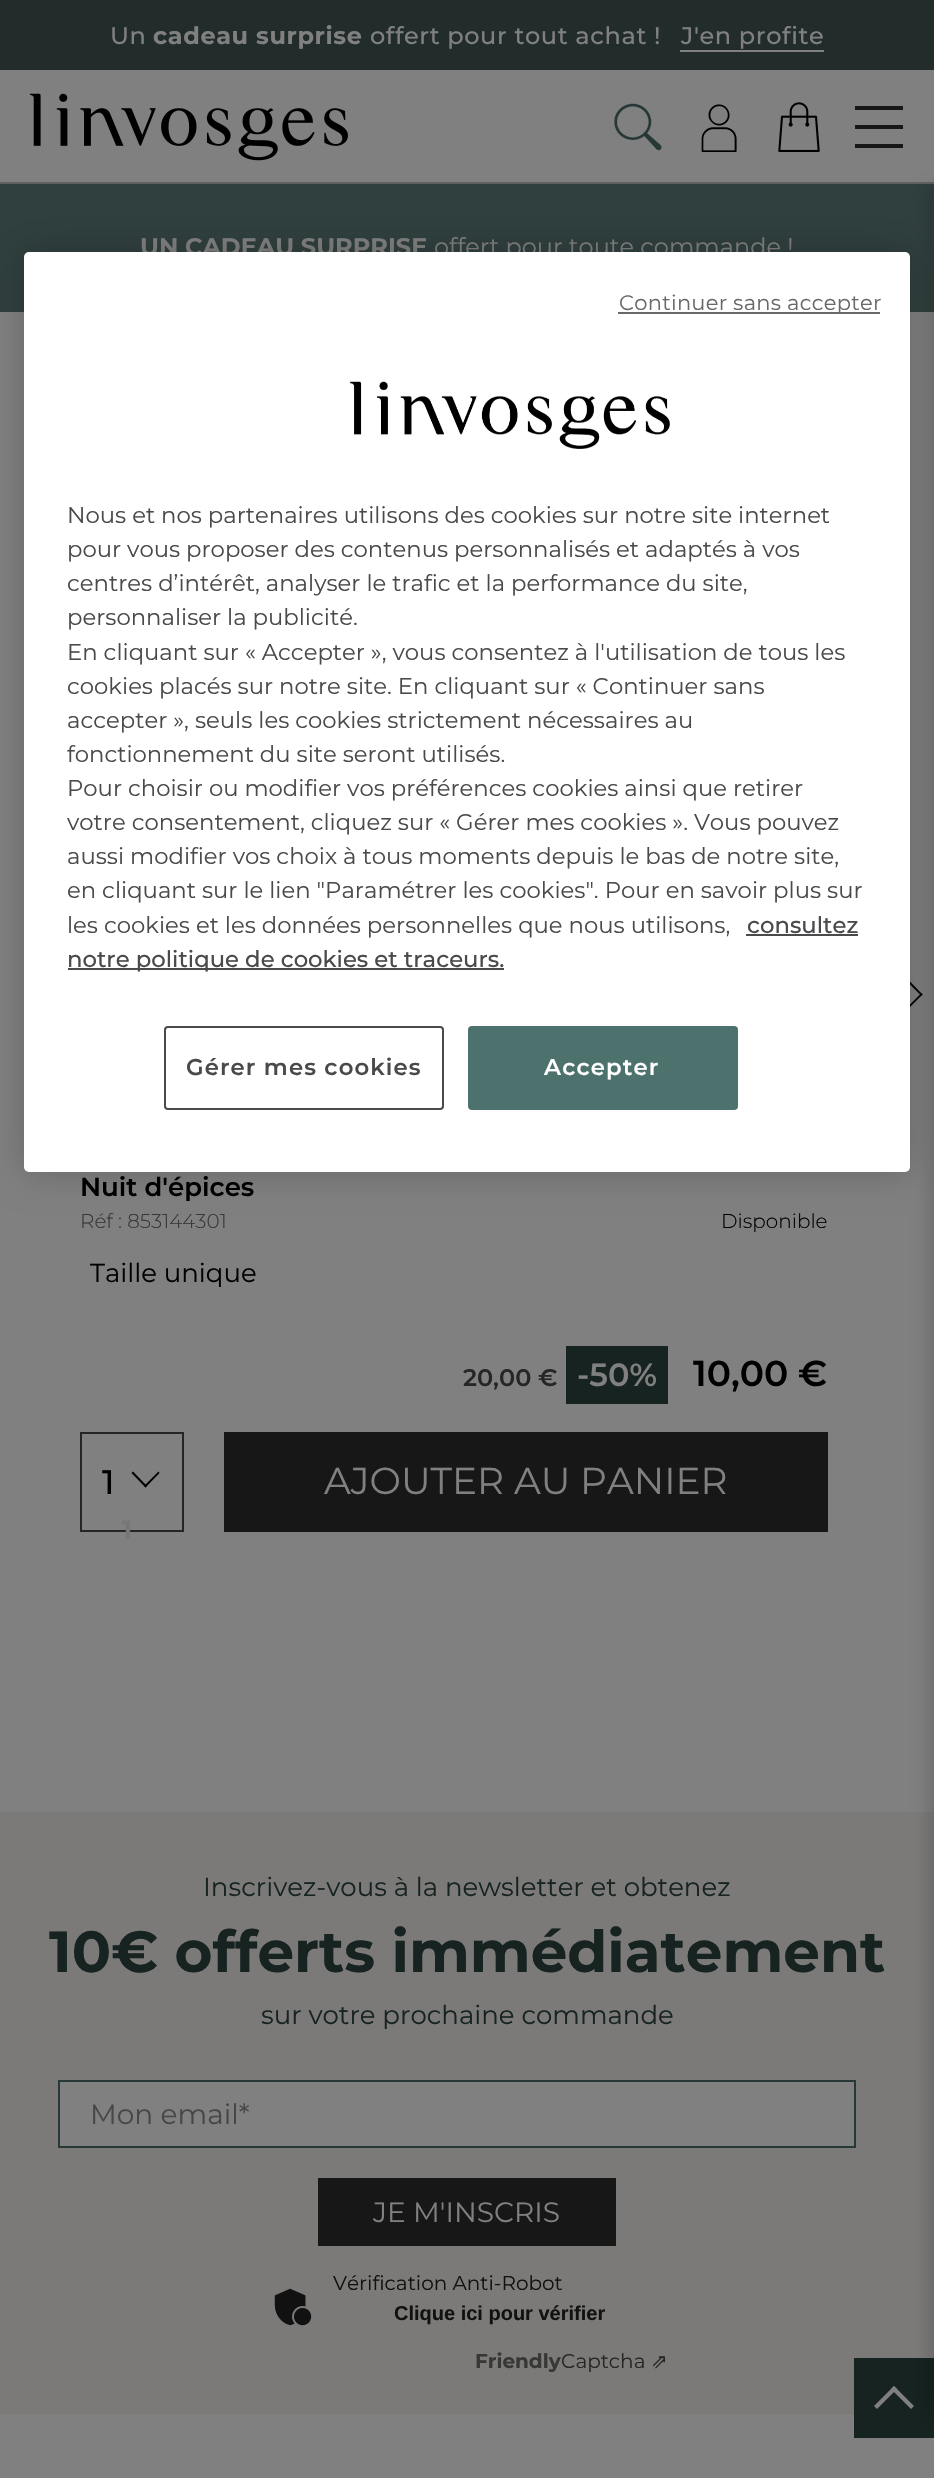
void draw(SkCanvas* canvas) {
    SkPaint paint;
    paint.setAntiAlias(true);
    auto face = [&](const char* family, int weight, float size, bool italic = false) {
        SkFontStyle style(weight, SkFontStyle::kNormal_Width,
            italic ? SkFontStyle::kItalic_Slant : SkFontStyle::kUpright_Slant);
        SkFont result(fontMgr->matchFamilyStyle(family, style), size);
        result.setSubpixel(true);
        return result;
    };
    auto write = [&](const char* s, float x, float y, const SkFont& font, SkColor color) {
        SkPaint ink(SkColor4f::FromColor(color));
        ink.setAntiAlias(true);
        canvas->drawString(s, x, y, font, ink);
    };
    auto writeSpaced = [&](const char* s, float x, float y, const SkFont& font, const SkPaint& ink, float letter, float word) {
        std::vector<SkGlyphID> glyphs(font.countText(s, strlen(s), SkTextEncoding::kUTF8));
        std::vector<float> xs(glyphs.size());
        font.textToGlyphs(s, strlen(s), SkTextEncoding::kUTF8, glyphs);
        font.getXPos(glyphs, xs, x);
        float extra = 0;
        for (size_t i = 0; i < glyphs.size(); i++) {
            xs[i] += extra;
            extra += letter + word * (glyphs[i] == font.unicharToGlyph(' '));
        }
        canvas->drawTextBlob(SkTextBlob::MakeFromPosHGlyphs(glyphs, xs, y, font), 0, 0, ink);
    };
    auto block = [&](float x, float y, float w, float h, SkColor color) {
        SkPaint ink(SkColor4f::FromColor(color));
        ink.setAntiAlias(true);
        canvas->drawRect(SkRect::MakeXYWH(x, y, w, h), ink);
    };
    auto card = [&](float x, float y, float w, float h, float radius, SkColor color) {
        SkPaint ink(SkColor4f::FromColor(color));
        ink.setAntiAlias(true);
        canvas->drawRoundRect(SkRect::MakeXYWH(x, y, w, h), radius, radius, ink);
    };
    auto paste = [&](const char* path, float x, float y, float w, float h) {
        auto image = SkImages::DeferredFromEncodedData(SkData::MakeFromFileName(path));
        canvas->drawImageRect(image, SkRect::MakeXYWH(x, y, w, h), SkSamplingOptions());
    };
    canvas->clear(SkColorSetRGB(128, 128, 128));
    block(0, 182, 934, 2, SkColorSetRGB(96, 96, 96));
    block(0, 0, 934, 70, SkColorSetRGB(33, 44, 43));
    auto kFont1 = face("Montserrat", 500, 24);
    paint.setColor(SkColorSetRGB(128, 128, 128));
    writeSpaced("Un", 110, 44, kFont1, paint, 0.6f, 0);
    auto kFont2 = face("Montserrat", 700, 24);
    writeSpaced("cadeau surprise", 153, 44, kFont2, paint, 0.6f, 0);
    writeSpaced("offert pour tout achat !", 370, 44, kFont1, paint, 0.6f, 0);
    writeSpaced("J'en profite", 681, 44, kFont1, paint, 0.6f, 0);
    block(680, 50, 144, 2, SkColorSetRGB(128, 128, 128));
    paste("pic1.png", 30, 93, 318, 68);
    paste("pic2.png", 614, 103, 48, 48);
    paste("pic3.png", 701, 104, 36, 48);
    paste("pic4.png", 778, 102, 42, 50);
    paint.setStyle(SkPaint::kStroke_Style);
    paint.setStrokeWidth(4);
    paint.setColor(SkColorSetRGB(23, 23, 23));
    canvas->drawPath(SkPathBuilder().moveTo(855, 108).lineTo(903, 108).moveTo(855, 127).lineTo(903, 127).moveTo(855, 146).lineTo(903, 146).detach(), paint);
    block(0, 184, 934, 128, SkColorSetRGB(48, 64, 62));
    write("UN CADEAU SURPRISE", 140, 255, kFont2, SkColorSetRGB(128, 128, 128));
    auto kFont3 = face("Montserrat", 400, 24);
    write("offert pour toute commande !", 434, 255, kFont3, SkColorSetRGB(128, 128, 128));
    paint.setStyle(SkPaint::kFill_Style);
    paint.setColor(SK_ColorBLACK);
    canvas->drawPath(SkPathBuilder().moveTo(908.5f, 983).lineTo(910, 981.5f).lineTo(922.5f, 994.5f).lineTo(921.5f, 996).close().detach(), paint);
    canvas->drawPath(SkPathBuilder().moveTo(908.5f, 1006).lineTo(921.5f, 993).lineTo(922.5f, 994.5f).lineTo(910, 1007).close().detach(), paint);
    block(0, 1812, 934, 602, SkColorSetRGB(123, 122, 120));
    block(854, 2358, 80, 80, SkColorSetRGB(22, 35, 33));
    paint.setColor(SkColorSetRGB(128, 128, 128));
    canvas->drawPath(SkPathBuilder().moveTo(877, 2409).lineTo(874, 2406).lineTo(894, 2386).lineTo(897, 2389).close().detach(), paint);
    canvas->drawPath(SkPathBuilder().moveTo(911, 2409).lineTo(891, 2389).lineTo(894, 2386).lineTo(914, 2406).close().detach(), paint);
    paint.setColor(SkColorSetARGB(38, 0, 0, 0));
    paint.setMaskFilter(SkMaskFilter::MakeBlur(kNormal_SkBlurStyle, 8));
    canvas->drawRect(SkRect::MakeXYWH(928, 188, 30, 2228), paint);
    paint.setMaskFilter(nullptr);
    auto kFont4 = face("Montserrat", 600, 26);
    write("Nuit d'épices", 80, 1196, kFont4, SK_ColorBLACK);
    auto kFont5 = face("Montserrat", 300, 20);
    write("Réf : 853144301", 80, 1228, kFont5, SkColorSetRGB(55, 55, 54));
    write("Disponible", 721, 1228, kFont5, SK_ColorBLACK);
    auto kFont6 = face("Montserrat", 400, 26);
    write("Taille unique", 90, 1282, kFont6, SK_ColorBLACK);
    auto kFont7 = face("Montserrat", 600, 24);
    write("20,00 €", 463, 1386, kFont7, SkColorSetRGB(38, 38, 38));
    block(566, 1346, 102, 58, SkColorSetRGB(22, 35, 33));
    auto kFont8 = face("Montserrat", 600, 32);
    write("-50%", 577, 1386, kFont8, SkColorSetRGB(128, 128, 128));
    auto kFont9 = face("Montserrat", 600, 36);
    write("10,00 €", 693, 1386, kFont9, SK_ColorBLACK);
    paint.setStyle(SkPaint::kStroke_Style);
    paint.setStrokeWidth(2);
    paint.setColor(SkColorSetRGB(37, 37, 37));
    canvas->drawRect(SkRect::MakeXYWH(81, 1433, 102, 98), paint);
    auto kFont10 = face("Montserrat", 500, 34);
    write("1", 102, 1494, kFont10, SK_ColorBLACK);
    paint.setStyle(SkPaint::kFill_Style);
    paint.setColor(SK_ColorBLACK);
    canvas->drawPath(SkPathBuilder().moveTo(158.5f, 1471.5f).lineTo(159.5f, 1473).lineTo(145.5f, 1487.5f).lineTo(144, 1486).close().detach(), paint);
    canvas->drawPath(SkPathBuilder().moveTo(133, 1471.5f).lineTo(147, 1486).lineTo(145.5f, 1487.5f).lineTo(131.5f, 1473).close().detach(), paint);
    auto kFont11 = face("Montserrat", 700, 26);
    write("1", 122, 1539, kFont11, SkColorSetRGB(119, 119, 119));
    block(224, 1432, 604, 100, SkColorSetRGB(23, 23, 23));
    auto kFont12 = face("Montserrat", 400, 37.4f);
    write("AJOUTER AU PANIER", 324, 1494, kFont12, SkColorSetRGB(128, 128, 128));
    write("Inscrivez-vous à la newsletter et obtenez", 203, 1896, kFont6, SkColorSetRGB(22, 35, 33));
    auto kFont13 = face("Montserrat", 700, 58);
    write("10€ offerts immédiatement", 49, 1972, kFont13, SkColorSetRGB(22, 35, 33));
    write("sur votre prochaine commande", 261, 2024, kFont6, SkColorSetRGB(22, 35, 33));
    paint.setColor(SkColorSetRGB(128, 128, 128));
    canvas->drawRect(SkRect::MakeXYWH(59, 2081, 796, 66), paint);
    paint.setStyle(SkPaint::kStroke_Style);
    paint.setColor(SkColorSetRGB(39, 57, 54));
    canvas->drawRect(SkRect::MakeXYWH(59, 2081, 796, 66), paint);
    auto kFont14 = face("Montserrat", 400, 28);
    write("Mon email*", 90, 2124, kFont14, SkColorSetRGB(71, 71, 71));
    block(318, 2178, 298, 68, SkColorSetRGB(23, 23, 23));
    write("JE M'INSCRIS", 373, 2222, kFont14, SkColorSetRGB(128, 128, 128));
    paste("pic5.png", 274, 2288, 38, 38);
    auto kFont15 = face("Montserrat", 400, 20);
    write("Vérification Anti-Robot", 333, 2290, kFont15, SkColorSetRGB(17, 17, 17));
    auto kFont16 = face("Liberation Sans", 700, 20);
    write("Clique ici pour vérifier", 394, 2320, kFont16, SkColorSetRGB(17, 17, 17));
    auto kFont17 = face("Montserrat", 700, 20);
    write("Friendly", 475, 2368, kFont17, SkColorSetRGB(55, 55, 54));
    write("Captcha", 561, 2368, kFont15, SkColorSetRGB(38, 38, 38));
    auto kFont18 = face("DejaVu Sans", 400, 20);
    write("⇗", 651, 2368, kFont18, SkColorSetRGB(38, 38, 38));
    paint.setStyle(SkPaint::kFill_Style);
    paint.setColor(SkColorSetARGB(51, 0, 0, 0));
    paint.setMaskFilter(SkMaskFilter::MakeBlur(kNormal_SkBlurStyle, 18));
    canvas->drawRoundRect(SkRect::MakeXYWH(24, 252, 886, 920), 5, 5, paint);
    paint.setMaskFilter(nullptr);
    card(24, 252, 886, 920, 5, SK_ColorWHITE);
    block(618, 312, 262, 2, SkColorSetRGB(105, 105, 105));
    auto kFont19 = face("Montserrat", 400, 21);
    paint.setColor(SkColorSetRGB(105, 105, 105));
    writeSpaced("Continuer sans accepter", 619, 310, kFont19, paint, 0.25f, 0);
    paste("pic6.png", 350, 381, 320, 68);
    auto kFont20 = face("Montserrat", 400, 22.75f);
    write("Nous et nos partenaires utilisons des cookies sur notre site internet", 67, 523, kFont20, SkColorSetRGB(74, 74, 77));
    write("pour vous proposer des contenus personnalisés et adaptés à vos", 67, 557, kFont20, SkColorSetRGB(74, 74, 77));
    write("centres d’intérêt, analyser le trafic et la performance du site,", 67, 591, kFont20, SkColorSetRGB(74, 74, 77));
    write("personnaliser la publicité.", 67, 625, kFont20, SkColorSetRGB(74, 74, 77));
    write("En cliquant sur « Accepter », vous consentez à l'utilisation de tous les", 67, 660, kFont20, SkColorSetRGB(74, 74, 77));
    write("cookies placés sur notre site. En cliquant sur « Continuer sans", 67, 694, kFont20, SkColorSetRGB(74, 74, 77));
    write("accepter », seuls les cookies strictement nécessaires au", 67, 728, kFont20, SkColorSetRGB(74, 74, 77));
    write("fonctionnement du site seront utilisés.", 67, 762, kFont20, SkColorSetRGB(74, 74, 77));
    write("Pour choisir ou modifier vos préférences cookies ainsi que retirer", 67, 796, kFont20, SkColorSetRGB(74, 74, 77));
    write("votre consentement, cliquez sur « Gérer mes cookies ». Vous pouvez", 67, 830, kFont20, SkColorSetRGB(74, 74, 77));
    write("aussi modifier vos choix à tous moments depuis le bas de notre site,", 67, 864, kFont20, SkColorSetRGB(74, 74, 77));
    write("en cliquant sur le lien \"Paramétrer les cookies\". Pour en savoir plus sur", 67, 898, kFont20, SkColorSetRGB(74, 74, 77));
    write("les cookies et les données personnelles que nous utilisons,", 67, 933, kFont20, SkColorSetRGB(74, 74, 77));
    auto kFont21 = face("Montserrat", 500, 22.75f);
    write("consultez", 747, 933, kFont21, SkColorSetRGB(74, 74, 77));
    block(746, 934, 112, 2, SkColorSetRGB(74, 74, 77));
    block(68, 968, 436, 2, SkColorSetRGB(74, 74, 77));
    write("notre politique de cookies et traceurs.", 67, 967, kFont21, SkColorSetRGB(74, 74, 77));
    paint.setStyle(SkPaint::kStroke_Style);
    paint.setColor(SkColorSetRGB(74, 74, 77));
    canvas->drawRoundRect(SkRect::MakeXYWH(165, 1027, 278, 82), 3, 3, paint);
    auto kFont22 = face("Montserrat", 600, 22.75f);
    paint.setStyle(SkPaint::kFill_Style);
    writeSpaced("Gérer mes cookies", 186, 1075, kFont22, paint, 1.1f, 0);
    paint.setColor(SkColorSetRGB(77, 113, 108));
    canvas->drawRoundRect(SkRect::MakeXYWH(469, 1027, 268, 82), 3, 3, paint);
    paint.setStyle(SkPaint::kStroke_Style);
    canvas->drawRoundRect(SkRect::MakeXYWH(469, 1027, 268, 82), 3, 3, paint);
    paint.setStyle(SkPaint::kFill_Style);
    paint.setColor(SK_ColorWHITE);
    writeSpaced("Accepter", 544, 1075, kFont22, paint, 1.1f, 0);
}
